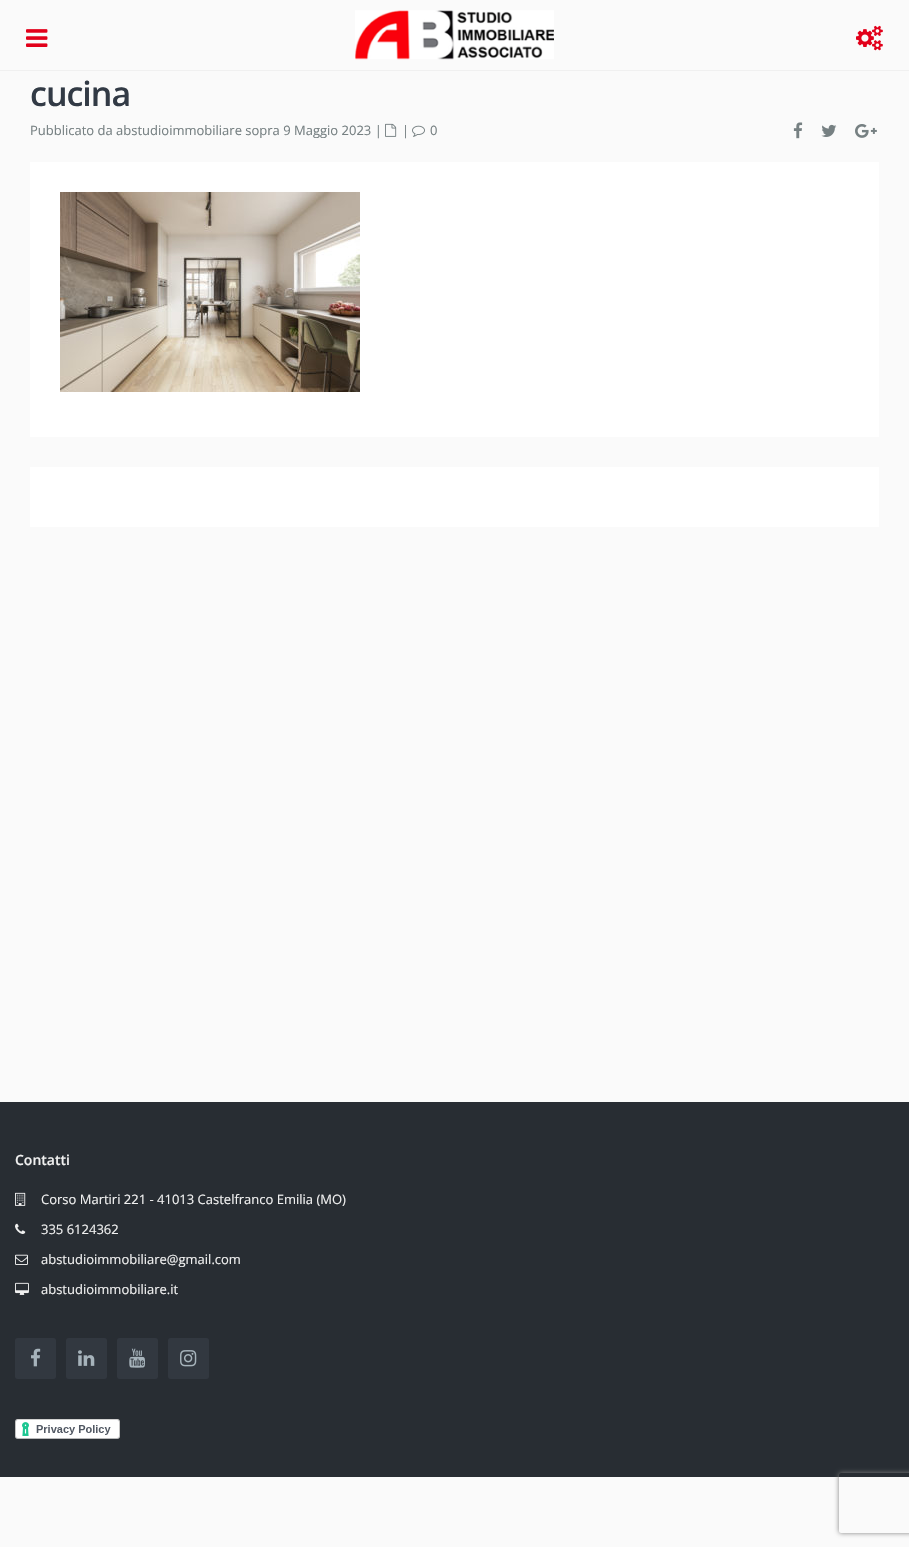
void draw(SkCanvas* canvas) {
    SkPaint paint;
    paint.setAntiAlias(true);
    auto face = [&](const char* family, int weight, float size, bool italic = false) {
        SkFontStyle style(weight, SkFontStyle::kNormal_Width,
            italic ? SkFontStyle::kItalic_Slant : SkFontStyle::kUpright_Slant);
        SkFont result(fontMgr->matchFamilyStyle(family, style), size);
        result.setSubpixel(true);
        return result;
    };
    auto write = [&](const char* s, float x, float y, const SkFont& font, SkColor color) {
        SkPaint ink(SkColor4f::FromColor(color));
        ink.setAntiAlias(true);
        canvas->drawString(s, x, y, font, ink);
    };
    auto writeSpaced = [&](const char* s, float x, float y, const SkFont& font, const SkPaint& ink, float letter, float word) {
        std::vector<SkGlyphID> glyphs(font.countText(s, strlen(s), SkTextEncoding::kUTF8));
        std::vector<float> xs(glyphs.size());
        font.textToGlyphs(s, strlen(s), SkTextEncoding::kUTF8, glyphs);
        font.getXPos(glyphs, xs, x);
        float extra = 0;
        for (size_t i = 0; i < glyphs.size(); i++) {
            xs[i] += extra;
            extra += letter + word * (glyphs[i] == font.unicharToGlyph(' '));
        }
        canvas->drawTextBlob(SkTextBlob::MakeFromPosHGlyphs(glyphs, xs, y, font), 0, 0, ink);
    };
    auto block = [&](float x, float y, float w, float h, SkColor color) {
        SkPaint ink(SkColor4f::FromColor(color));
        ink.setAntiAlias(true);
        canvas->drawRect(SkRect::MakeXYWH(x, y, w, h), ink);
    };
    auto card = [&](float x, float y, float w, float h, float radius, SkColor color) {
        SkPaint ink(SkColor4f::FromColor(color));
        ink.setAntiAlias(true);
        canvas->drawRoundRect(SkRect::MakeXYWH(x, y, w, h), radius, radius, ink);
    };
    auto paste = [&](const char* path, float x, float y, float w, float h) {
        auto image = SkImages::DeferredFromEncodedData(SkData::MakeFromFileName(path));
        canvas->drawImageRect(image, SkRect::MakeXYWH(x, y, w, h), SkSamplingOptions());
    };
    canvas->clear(SkColorSetRGB(250, 250, 250));
    block(0, 70, 909, 1, SkColorSetRGB(240, 240, 240));
    paste("pic1.png", 26, 29, 22, 18);
    paste("pic2.png", 355, 10, 199, 50);
    paste("pic3.png", 856, 25, 27, 26);
    auto kFont1 = face("Open Sans", 600, 34);
    paint.setColor(SkColorSetRGB(50, 58, 69));
    writeSpaced("cucina", 30, 106, kFont1, paint, -1, 0);
    auto kFont2 = face("Open Sans", 400, 13);
    write("Pubblicato da abstudioimmobiliare sopra 9 Maggio 2023 |", 30, 135, kFont2, SkColorSetRGB(118, 128, 130));
    paste("pic4.png", 385, 123, 12, 14);
    write("|", 402, 135, kFont2, SkColorSetRGB(118, 128, 130));
    paste("pic5.png", 412, 125, 13, 12);
    write("0", 430, 135, kFont2, SkColorSetRGB(118, 128, 130));
    paste("pic6.png", 793, 122, 10, 17);
    paste("pic7.png", 821, 124, 16, 13);
    paste("pic8.png", 855, 124, 22, 14);
    block(30, 162, 849, 275, SK_ColorWHITE);
    paste("pic9.png", 60, 192, 300, 200);
    block(30, 467, 849, 60, SK_ColorWHITE);
    block(0, 1102, 909, 375, SkColorSetRGB(40, 45, 51));
    auto kFont3 = face("Open Sans", 600, 14);
    write("Contatti", 15, 1165, kFont3, SkColorSetRGB(240, 240, 240));
    paste("pic10.png", 15, 1192, 11, 14);
    write("Corso Martiri 221 - 41013 Castelfranco Emilia (MO)", 41, 1204, kFont2, SkColorSetRGB(240, 240, 240));
    paste("pic11.png", 15, 1223, 11, 11);
    write("335 6124362", 41, 1234, kFont2, SkColorSetRGB(240, 240, 240));
    paste("pic12.png", 15, 1254, 13, 11);
    write("abstudioimmobiliare@gmail.com", 41, 1264, kFont2, SkColorSetRGB(240, 240, 240));
    paste("pic13.png", 15, 1282, 14, 13);
    write("abstudioimmobiliare.it", 41, 1294, kFont2, SkColorSetRGB(240, 240, 240));
    card(15, 1338, 41, 41, 3, SkColorSetRGB(50, 56, 64));
    paste("pic14.png", 31, 1348, 10, 19);
    card(66, 1338, 41, 41, 3, SkColorSetRGB(50, 56, 64));
    paste("pic15.png", 78, 1350, 17, 16);
    card(117, 1338, 41, 41, 3, SkColorSetRGB(50, 56, 64));
    paste("pic16.png", 129, 1348, 16, 20);
    card(168, 1338, 41, 41, 3, SkColorSetRGB(50, 56, 64));
    paste("pic17.png", 180, 1350, 17, 17);
    paste("pic18.png", 15, 1419, 105, 20);
    canvas->save();
    canvas->clipPath(SkPathBuilder(SkPathFillType::kEvenOdd).moveTo(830, 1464).lineTo(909, 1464).lineTo(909, 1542).lineTo(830, 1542).close().moveTo(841, 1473).lineTo(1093, 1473).cubicTo(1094, 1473, 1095, 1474, 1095, 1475).lineTo(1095, 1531).cubicTo(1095, 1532, 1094, 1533, 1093, 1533).lineTo(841, 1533).cubicTo(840, 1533, 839, 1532, 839, 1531).lineTo(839, 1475).cubicTo(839, 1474, 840, 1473, 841, 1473).close().detach(), true);
    paint.setColor(SkColorSetRGB(128, 128, 128));
    paint.setMaskFilter(SkMaskFilter::MakeBlur(kNormal_SkBlurStyle, 2.5f));
    canvas->drawRoundRect(SkRect::MakeXYWH(839, 1473, 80, 60), 2, 2, paint);
    paint.setMaskFilter(nullptr);
    canvas->restore();
}
